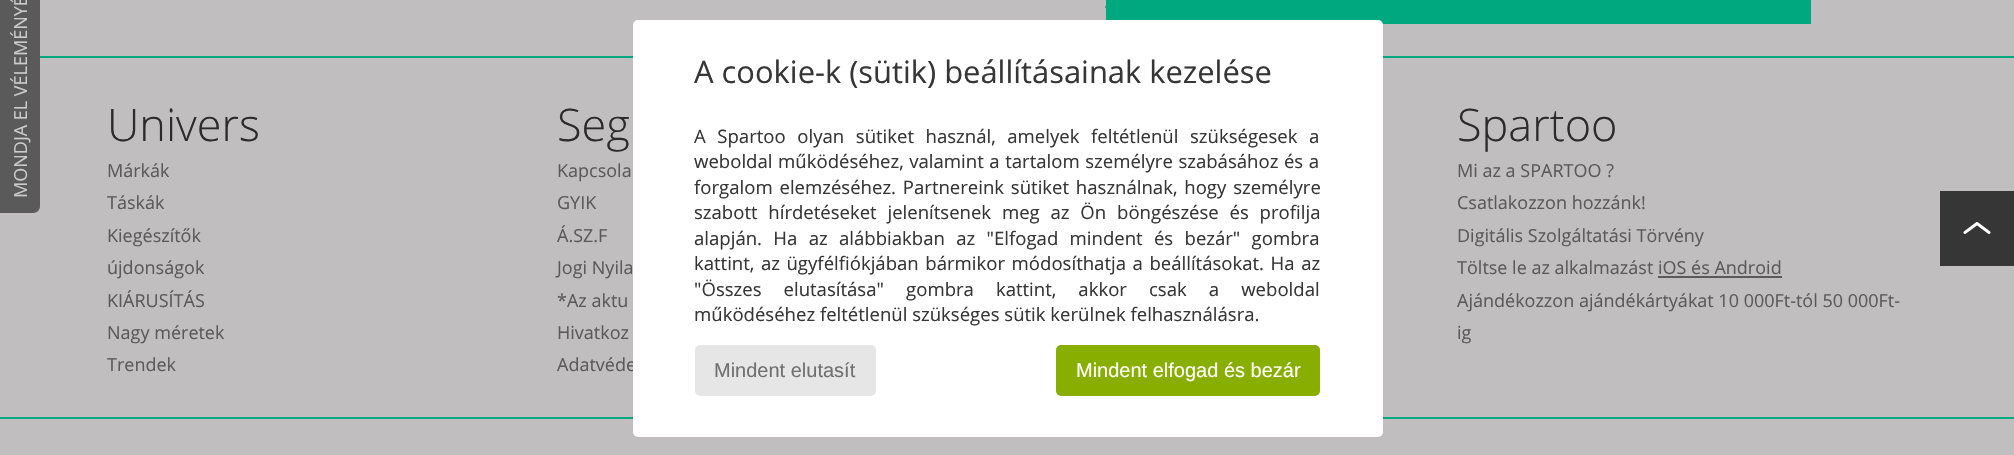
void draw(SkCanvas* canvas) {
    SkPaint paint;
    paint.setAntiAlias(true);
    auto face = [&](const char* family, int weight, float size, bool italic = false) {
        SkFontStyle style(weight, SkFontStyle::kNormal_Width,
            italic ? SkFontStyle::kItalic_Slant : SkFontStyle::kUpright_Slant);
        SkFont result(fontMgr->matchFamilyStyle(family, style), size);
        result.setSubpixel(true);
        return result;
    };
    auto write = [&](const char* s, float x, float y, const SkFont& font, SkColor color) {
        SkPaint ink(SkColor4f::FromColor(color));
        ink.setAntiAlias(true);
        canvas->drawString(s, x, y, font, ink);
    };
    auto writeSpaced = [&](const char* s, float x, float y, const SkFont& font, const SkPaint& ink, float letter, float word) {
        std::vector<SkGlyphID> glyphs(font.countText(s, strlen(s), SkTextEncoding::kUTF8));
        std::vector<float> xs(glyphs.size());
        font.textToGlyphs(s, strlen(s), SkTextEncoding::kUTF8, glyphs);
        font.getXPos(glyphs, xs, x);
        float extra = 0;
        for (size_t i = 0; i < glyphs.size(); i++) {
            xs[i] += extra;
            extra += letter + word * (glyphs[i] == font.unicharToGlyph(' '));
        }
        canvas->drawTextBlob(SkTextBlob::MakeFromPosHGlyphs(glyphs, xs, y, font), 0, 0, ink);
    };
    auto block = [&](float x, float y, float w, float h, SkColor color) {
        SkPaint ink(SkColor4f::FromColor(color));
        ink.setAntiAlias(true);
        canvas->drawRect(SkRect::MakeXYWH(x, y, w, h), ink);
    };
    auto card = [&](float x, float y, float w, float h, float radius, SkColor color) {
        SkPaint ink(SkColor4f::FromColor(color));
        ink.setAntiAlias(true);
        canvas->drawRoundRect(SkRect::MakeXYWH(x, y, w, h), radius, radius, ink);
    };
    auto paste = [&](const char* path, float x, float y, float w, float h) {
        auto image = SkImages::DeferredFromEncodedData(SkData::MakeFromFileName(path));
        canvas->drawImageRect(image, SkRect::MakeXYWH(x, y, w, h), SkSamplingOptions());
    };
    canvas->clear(SkColorSetRGB(192, 190, 190));
    paint.setColor(SkColorSetRGB(90, 90, 90));
    canvas->drawPath(SkPathBuilder().moveTo(0, 213).lineTo(0, -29).lineTo(33, -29).cubicTo(37, -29, 40, -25, 40, -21).lineTo(40, 206).cubicTo(40, 210, 37, 213, 33, 213).close().detach(), paint);
    auto kFont1 = face("Open Sans", 400, 18);
    canvas->save();
    canvas->rotate(-90, 27, 198);
    write("MONDJA EL VÉLEMÉNYÉT", 27, 198, kFont1, SkColorSetRGB(204, 204, 204));
    canvas->restore();
    paint.setStyle(SkPaint::kStroke_Style);
    paint.setStrokeWidth(1.5f);
    paint.setColor(SkColorSetRGB(43, 43, 43));
    paint.setPathEffect(SkDashPathEffect::Make({{1.5f, 1.5f}}, 0));
    canvas->drawPath(SkPathBuilder().moveTo(1105.5f, 7).lineTo(1810.5f, 7).detach(), paint);
    paint.setPathEffect(nullptr);
    block(1106, 0, 705, 24, SkColorSetRGB(0, 168, 127));
    block(40, 56, 1974, 2, SkColorSetRGB(0, 168, 127));
    write("Adatvéde", 557, 371, kFont1, SkColorSetRGB(90, 90, 90));
    block(0, 417, 2014, 2, SkColorSetRGB(0, 168, 127));
    card(633, 20, 750, 417, 5, SK_ColorWHITE);
    auto kFont2 = face("Open Sans", 400, 30.9f);
    write("A cookie-k (sütik) beállításainak kezelése", 694, 83, kFont2, SkColorSetRGB(54, 54, 54));
    auto kFont3 = face("Open Sans", 400, 18.55f);
    paint.setStyle(SkPaint::kFill_Style);
    paint.setColor(SkColorSetRGB(54, 54, 54));
    writeSpaced("A Spartoo olyan sütiket használ, amelyek feltétlenül szükségesek a", 694, 143, kFont3, paint, 0, 6.75f);
    writeSpaced("weboldal működéséhez, valamint a tartalom személyre szabásához és a", 694, 168, kFont3, paint, 0, 0.75f);
    writeSpaced("forgalom elemzéséhez. Partnereink sütiket használnak, hogy személyre", 694, 194, kFont3, paint, 0, 2);
    writeSpaced("szabott hírdetéseket jelenítsenek meg az Ön böngészése és profilja", 694, 219, kFont3, paint, 0, 6);
    writeSpaced("alapján. Ha az alábbiakban az \"Elfogad mindent és bezár\" gombra", 694, 245, kFont3, paint, 0, 6.5f);
    writeSpaced("kattint, az ügyfélfiókjában bármikor módosíthatja a beállításokat. Ha az", 694, 270, kFont3, paint, 0, 1.75f);
    writeSpaced("\"Összes elutasítása\" gombra kattint, akkor csak a weboldal", 694, 296, kFont3, paint, 0, 17.25f);
    write("működéséhez feltétlenül szükséges sütik kerülnek felhasználásra.", 694, 321, kFont3, SkColorSetRGB(54, 54, 54));
    card(695, 345, 181, 51, 5, SkColorSetRGB(230, 230, 230));
    auto kFont4 = face("Liberation Sans", 400, 20);
    write("Mindent elutasít", 714, 377, kFont4, SkColorSetRGB(112, 112, 112));
    card(1056, 345, 264, 51, 5, SkColorSetRGB(136, 175, 0));
    write("Mindent elfogad és bezár", 1076, 377, kFont4, SK_ColorWHITE);
    auto kFont5 = face("Open Sans", 300, 45);
    write("Univers", 107, 141, kFont5, SkColorSetRGB(43, 43, 43));
    write("Márkák", 107, 177, kFont1, SkColorSetRGB(90, 90, 90));
    write("Táskák", 107, 209, kFont1, SkColorSetRGB(90, 90, 90));
    write("Kiegészítők", 107, 242, kFont1, SkColorSetRGB(90, 90, 90));
    write("újdonságok", 107, 274, kFont1, SkColorSetRGB(90, 90, 90));
    write("KIÁRUSÍTÁS", 107, 307, kFont1, SkColorSetRGB(90, 90, 90));
    write("Nagy méretek", 107, 339, kFont1, SkColorSetRGB(90, 90, 90));
    write("Trendek", 107, 371, kFont1, SkColorSetRGB(90, 90, 90));
    write("Seg", 557, 141, kFont5, SkColorSetRGB(43, 43, 43));
    write("Kapcsola", 557, 177, kFont1, SkColorSetRGB(90, 90, 90));
    write("GYIK", 557, 209, kFont1, SkColorSetRGB(90, 90, 90));
    write("Á.SZ.F", 557, 242, kFont1, SkColorSetRGB(90, 90, 90));
    write("Jogi Nyila", 557, 274, kFont1, SkColorSetRGB(90, 90, 90));
    write("*Az aktu", 557, 307, kFont1, SkColorSetRGB(90, 90, 90));
    write("Hivatkoz", 557, 339, kFont1, SkColorSetRGB(90, 90, 90));
    write("Spartoo", 1457, 141, kFont5, SkColorSetRGB(43, 43, 43));
    write("Mi az a SPARTOO ?", 1457, 177, kFont1, SkColorSetRGB(90, 90, 90));
    write("Csatlakozzon hozzánk!", 1457, 209, kFont1, SkColorSetRGB(90, 90, 90));
    write("Digitális Szolgáltatási Törvény", 1457, 242, kFont1, SkColorSetRGB(90, 90, 90));
    write("Töltse le az alkalmazást iOS és Android", 1457, 274, kFont1, SkColorSetRGB(90, 90, 90));
    block(1658, 276, 124, 2, SkColorSetRGB(90, 90, 90));
    write("Ajándékozzon ajándékártyákat 10 000Ft-tól 50 000Ft-", 1457, 307, kFont1, SkColorSetRGB(90, 90, 90));
    write("ig", 1457, 339, kFont1, SkColorSetRGB(90, 90, 90));
    block(1940, 191, 74, 75, SkColorSetRGB(54, 54, 54));
    paste("pic1.png", 1963, 222, 28, 12);
}
